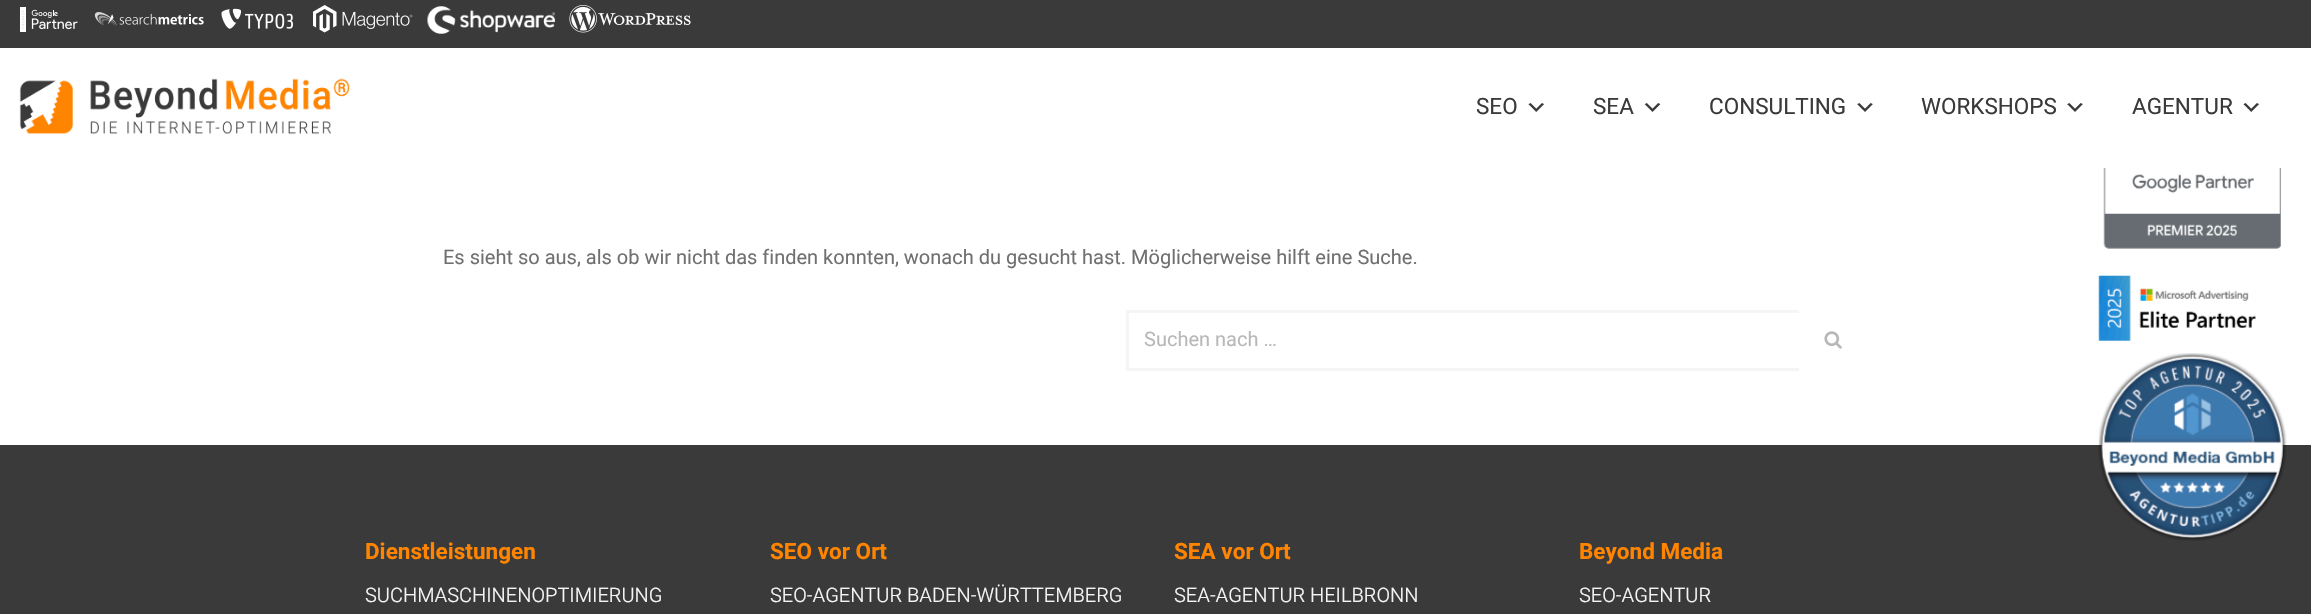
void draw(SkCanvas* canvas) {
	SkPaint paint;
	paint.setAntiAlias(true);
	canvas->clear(0xffffffff);
	paint.setColor(0xff3a3a3a);
	canvas->drawRect(SkRect::MakeXYWH(0, 0, 2311, 48), paint);
	canvas->drawImageRect(SkImages::DeferredFromEncodedData(SkData::MakeFromFileName("img1.png")), SkRect::MakeXYWH(20, 7, 58, 25), SkSamplingOptions());
	canvas->drawImageRect(SkImages::DeferredFromEncodedData(SkData::MakeFromFileName("img2.png")), SkRect::MakeXYWH(94, 12, 110, 14), SkSamplingOptions());
	canvas->drawImageRect(SkImages::DeferredFromEncodedData(SkData::MakeFromFileName("img3.png")), SkRect::MakeXYWH(221, 8, 72, 21), SkSamplingOptions());
	canvas->drawImageRect(SkImages::DeferredFromEncodedData(SkData::MakeFromFileName("img4.png")), SkRect::MakeXYWH(313, 5, 100, 28), SkSamplingOptions());
	canvas->drawImageRect(SkImages::DeferredFromEncodedData(SkData::MakeFromFileName("img5.png")), SkRect::MakeXYWH(427, 6, 128, 28), SkSamplingOptions());
	canvas->drawImageRect(SkImages::DeferredFromEncodedData(SkData::MakeFromFileName("img6.png")), SkRect::MakeXYWH(569, 5, 122, 28), SkSamplingOptions());
	canvas->drawImageRect(SkImages::DeferredFromEncodedData(SkData::MakeFromFileName("img7.png")), SkRect::MakeXYWH(19, 78, 331, 57), SkSamplingOptions());
	SkFont f1(fontMgr->matchFamilyStyle("Heebo", SkFontStyle::Normal()), 22.5);
	f1.setSubpixel(true);
	canvas->drawString("SEO", 1476, 114, f1, paint);
	canvas->drawImageRect(SkImages::DeferredFromEncodedData(SkData::MakeFromFileName("img8.png")), SkRect::MakeXYWH(1528, 103, 16, 9), SkSamplingOptions());
	canvas->drawString("SEA", 1593, 114, f1, paint);
	canvas->drawImageRect(SkImages::DeferredFromEncodedData(SkData::MakeFromFileName("img9.png")), SkRect::MakeXYWH(1644, 103, 17, 9), SkSamplingOptions());
	canvas->drawString("CONSULTING", 1709, 114, f1, paint);
	canvas->drawImageRect(SkImages::DeferredFromEncodedData(SkData::MakeFromFileName("img10.png")), SkRect::MakeXYWH(1857, 103, 16, 9), SkSamplingOptions());
	canvas->drawString("WORKSHOPS", 1921, 114, f1, paint);
	canvas->drawImageRect(SkImages::DeferredFromEncodedData(SkData::MakeFromFileName("img10.png")), SkRect::MakeXYWH(2067, 103, 16, 9), SkSamplingOptions());
	canvas->drawString("AGENTUR", 2132, 114, f1, paint);
	canvas->drawImageRect(SkImages::DeferredFromEncodedData(SkData::MakeFromFileName("img8.png")), SkRect::MakeXYWH(2243, 103, 16, 9), SkSamplingOptions());
	SkFont f2(fontMgr->matchFamilyStyle("Roboto", SkFontStyle::Normal()), 20);
	f2.setSubpixel(true);
	paint.setColor(0xff707070);
	canvas->drawString("Es sieht so aus, als ob wir nicht das finden konnten, wonach du gesucht hast. Möglicherweise hilft eine Suche.", 443, 264, f2, paint);
	paint.setColor(0xfff5f5f5);
	canvas->drawRect(SkRect::MakeXYWH(1126, 310, 673, 3), paint);
	canvas->drawRect(SkRect::MakeXYWH(1126, 368, 673, 3), paint);
	canvas->drawRect(SkRect::MakeXYWH(1126, 310, 3, 60), paint);
	SkFont f3(fontMgr->matchFamilyStyle("Heebo", SkFontStyle::Normal()), 20);
	f3.setSubpixel(true);
	paint.setColor(0xffb8b8b8);
	canvas->drawString("Suchen nach …", 1144, 346, f3, paint);
	canvas->drawImageRect(SkImages::DeferredFromEncodedData(SkData::MakeFromFileName("img11.png")), SkRect::MakeXYWH(1824, 331, 18, 18), SkSamplingOptions());
	paint.setColor(0xff3a3a3a);
	canvas->drawRect(SkRect::MakeXYWH(0, 445, 2311, 169), paint);
	SkFont f4(fontMgr->matchFamilyStyle("Heebo", SkFontStyle::Bold()), 22.5);
	f4.setSubpixel(true);
	paint.setColor(0xffff8400);
	canvas->drawString("Dienstleistungen", 365, 559, f4, paint);
	SkFont f5(fontMgr->matchFamilyStyle("Heebo", SkFontStyle(300, SkFontStyle::kNormal_Width, SkFontStyle::kUpright_Slant)), 20);
	f5.setSubpixel(true);
	paint.setColor(0xfff5f5f5);
	canvas->drawString("SUCHMASCHINENOPTIMIERUNG", 365, 602, f5, paint);
	paint.setColor(0xffff8400);
	canvas->drawString("SEO vor Ort", 770, 559, f4, paint);
	paint.setColor(0xfff5f5f5);
	canvas->drawString("SEO-AGENTUR BADEN-WÜRTTEMBERG", 770, 602, f5, paint);
	paint.setColor(0xffff8400);
	canvas->drawString("SEA vor Ort", 1174, 559, f4, paint);
	paint.setColor(0xfff5f5f5);
	canvas->drawString("SEA-AGENTUR HEILBRONN", 1174, 602, f5, paint);
	paint.setColor(0xffff8400);
	canvas->drawString("Beyond Media", 1579, 559, f4, paint);
	paint.setColor(0xfff5f5f5);
	canvas->drawString("SEO-AGENTUR", 1579, 602, f5, paint);
	canvas->drawImageRect(SkImages::DeferredFromEncodedData(SkData::MakeFromFileName("img12.png")), SkRect::MakeXYWH(2103, 168, 178, 81), SkSamplingOptions());
	canvas->drawImageRect(SkImages::DeferredFromEncodedData(SkData::MakeFromFileName("img13.png")), SkRect::MakeXYWH(2098, 275, 158, 66), SkSamplingOptions());
	canvas->drawImageRect(SkImages::DeferredFromEncodedData(SkData::MakeFromFileName("img14.png")), SkRect::MakeXYWH(2098, 353, 189, 188), SkSamplingOptions());
}
